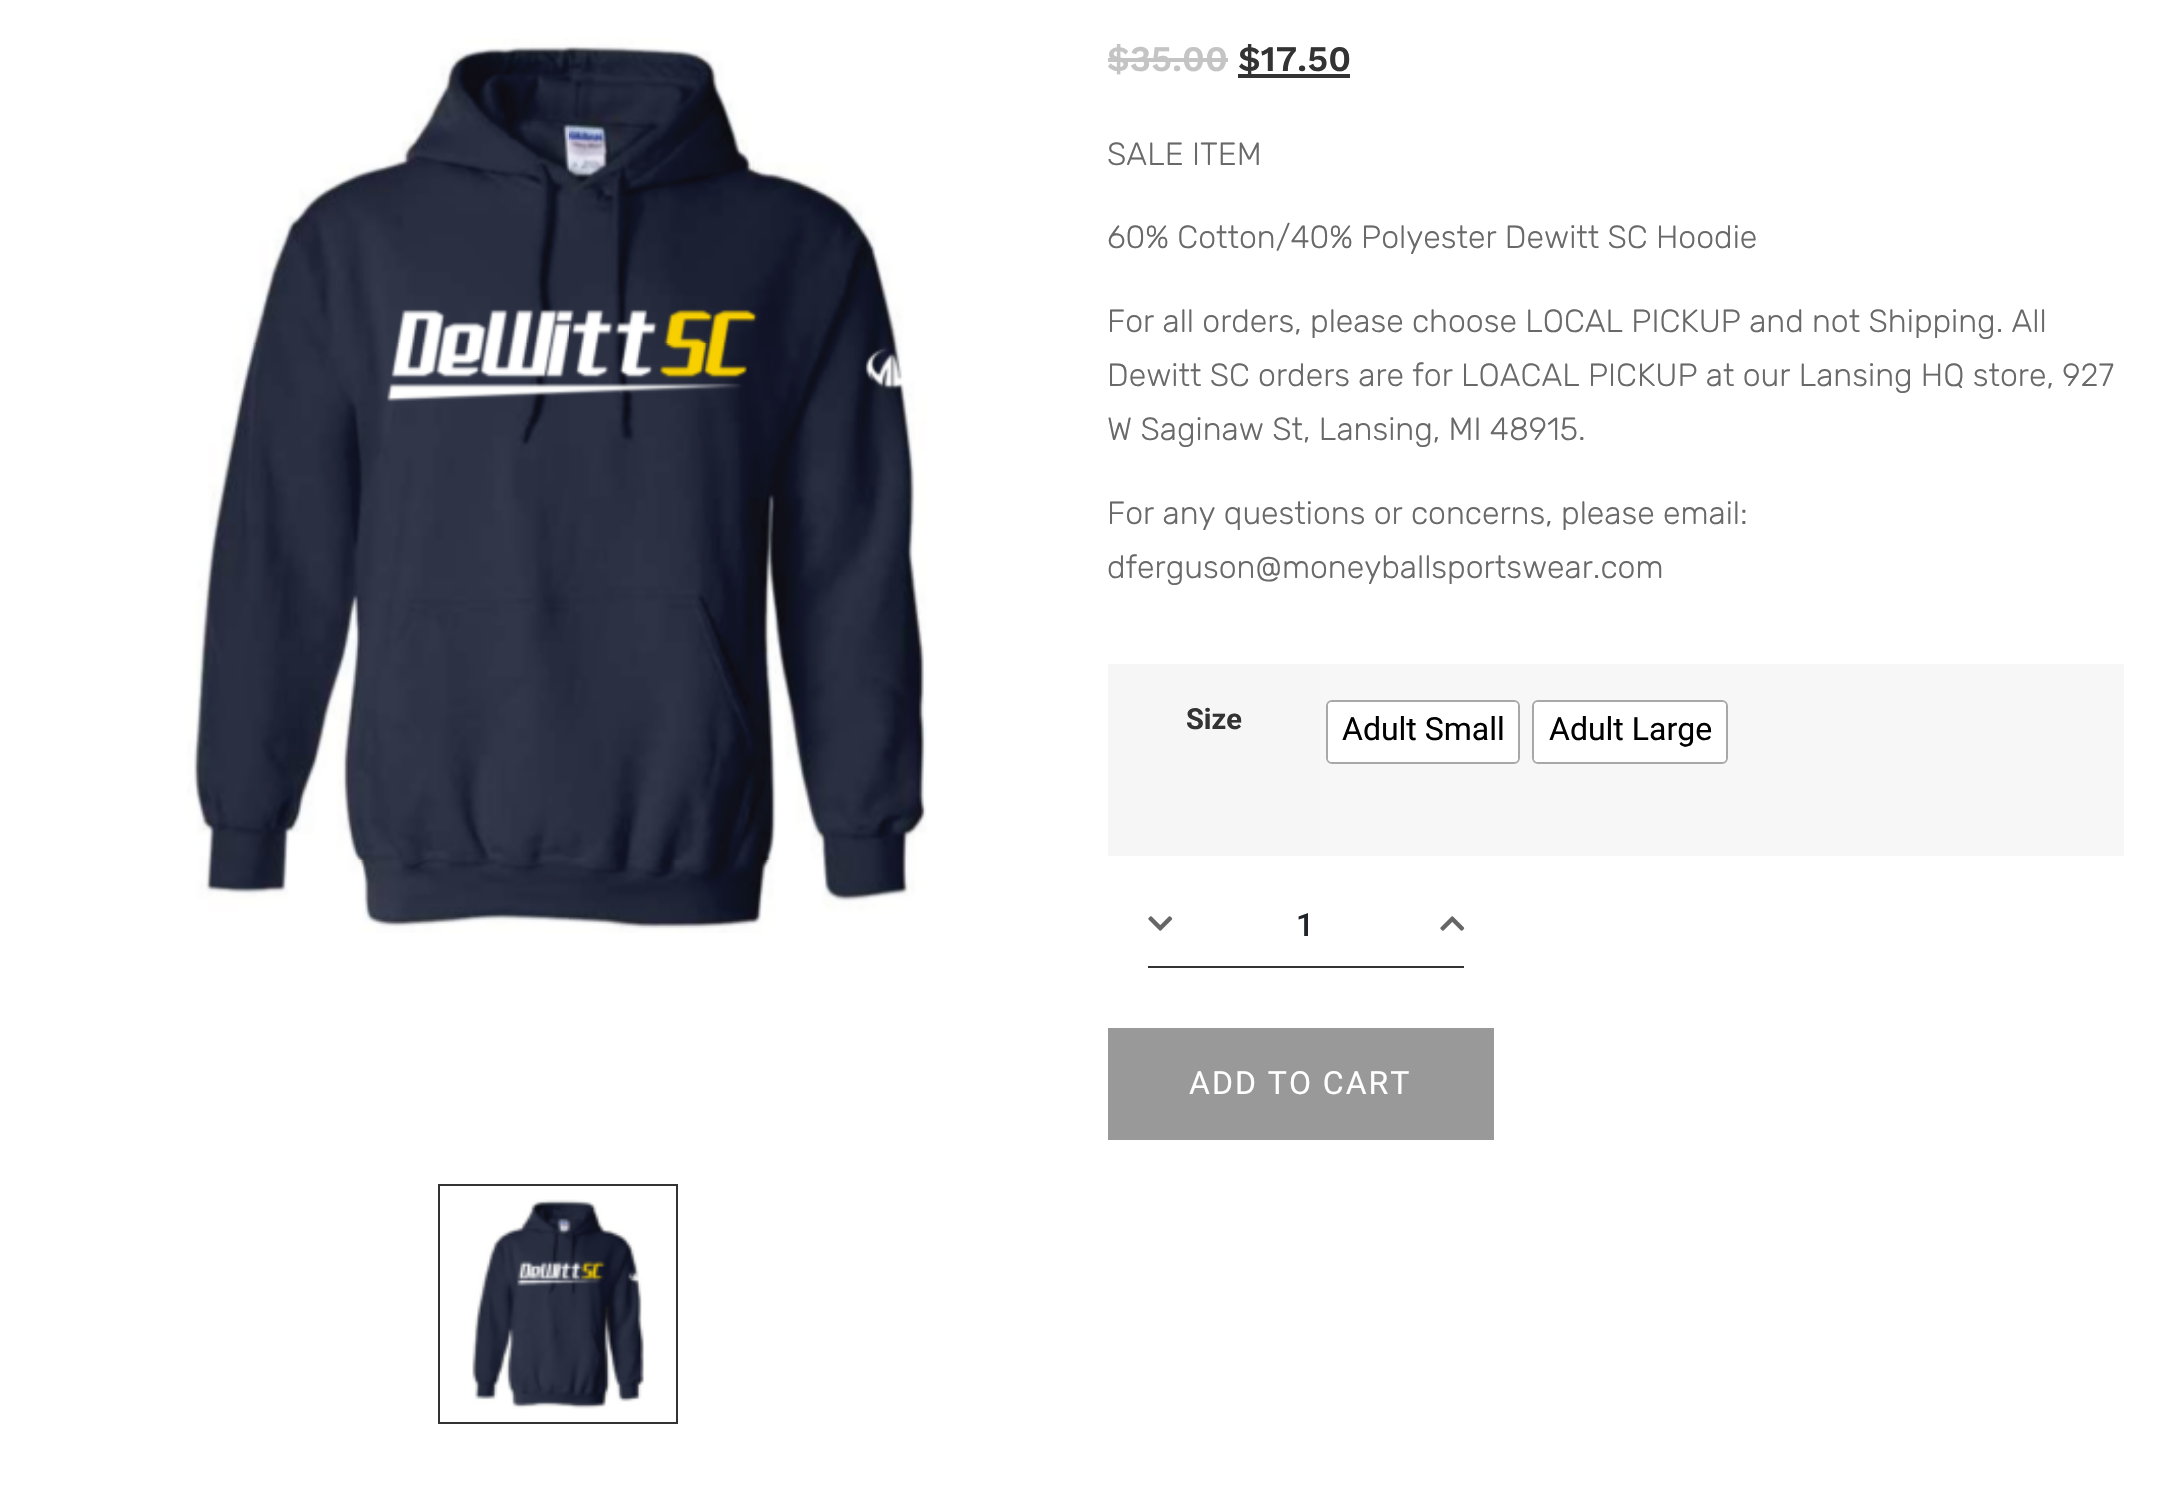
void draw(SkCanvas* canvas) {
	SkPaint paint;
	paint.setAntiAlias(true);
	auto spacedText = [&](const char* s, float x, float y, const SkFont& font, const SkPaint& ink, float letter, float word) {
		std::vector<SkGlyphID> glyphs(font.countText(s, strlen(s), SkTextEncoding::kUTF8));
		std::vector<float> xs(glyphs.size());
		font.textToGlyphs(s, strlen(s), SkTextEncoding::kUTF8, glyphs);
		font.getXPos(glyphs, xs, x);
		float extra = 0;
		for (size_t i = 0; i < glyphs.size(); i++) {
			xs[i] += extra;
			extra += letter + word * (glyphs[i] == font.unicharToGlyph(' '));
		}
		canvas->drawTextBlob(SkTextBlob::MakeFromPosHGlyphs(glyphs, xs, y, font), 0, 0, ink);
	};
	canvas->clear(0xffffffff);
	canvas->drawImageRect(SkImages::DeferredFromEncodedData(SkData::MakeFromFileName("img1.png")), SkRect::MakeXYWH(187, 38, 740, 895), SkSamplingOptions());
	paint.setStroke(true);
	paint.setStrokeWidth(2);
	paint.setColor(0xff333333);
	canvas->drawRect(SkRect::MakeXYWH(439, 1185, 238, 238), paint);
	canvas->drawImageRect(SkImages::DeferredFromEncodedData(SkData::MakeFromFileName("img2.png")), SkRect::MakeXYWH(472, 1199, 173, 210), SkSamplingOptions());
	SkFont f1(fontMgr->matchFamilyStyle("Work Sans", SkFontStyle(600, SkFontStyle::kNormal_Width, SkFontStyle::kUpright_Slant)), 36);
	f1.setSubpixel(true);
	paint.setStroke(false);
	paint.setColor(0xffc4c4c4);
	canvas->drawString("$35.00", 1107, 71, f1, paint);
	canvas->drawRect(SkRect::MakeXYWH(1108, 58, 120, 4), paint);
	paint.setColor(0xff333333);
	canvas->drawRect(SkRect::MakeXYWH(1238, 74, 112, 4), paint);
	canvas->drawString("$17.50", 1238, 71, f1, paint);
	SkFont f2(fontMgr->matchFamilyStyle("Rubik", SkFontStyle(300, SkFontStyle::kNormal_Width, SkFontStyle::kUpright_Slant)), 32);
	f2.setSubpixel(true);
	paint.setColor(0xff696969);
	canvas->drawString("SALE ITEM", 1107, 165, f2, paint);
	canvas->drawString("60% Cotton/40% Polyester Dewitt SC Hoodie", 1107, 248, f2, paint);
	canvas->drawString("For all orders, please choose LOCAL PICKUP and not Shipping. All", 1107, 332, f2, paint);
	canvas->drawString("Dewitt SC orders are for LOACAL PICKUP at our Lansing HQ store, 927", 1107, 386, f2, paint);
	canvas->drawString("W Saginaw St, Lansing, MI 48915.", 1107, 440, f2, paint);
	canvas->drawString("For any questions or concerns, please email:", 1107, 524, f2, paint);
	canvas->drawString("dferguson@moneyballsportswear.com", 1107, 578, f2, paint);
	paint.setColor(0xfff6f6f6);
	canvas->drawRect(SkRect::MakeXYWH(1108, 664, 212, 192), paint);
	SkFont f3(fontMgr->matchFamilyStyle("Roboto", SkFontStyle::Bold()), 29);
	f3.setSubpixel(true);
	paint.setColor(0xff333333);
	canvas->drawString("Size", 1186, 729, f3, paint);
	paint.setColor(0xfff7f7f7);
	canvas->drawRect(SkRect::MakeXYWH(1320, 664, 804, 192), paint);
	paint.setStroke(true);
	paint.setColor(0xffa8a8a8);
	canvas->drawRoundRect(SkRect::MakeXYWH(1327, 701, 192, 62), 5, 5, paint);
	paint.setStroke(false);
	paint.setColor(0xffffffff);
	canvas->drawRoundRect(SkRect::MakeXYWH(1328, 702, 190, 60), 4, 4, paint);
	SkFont f4(fontMgr->matchFamilyStyle("Roboto", SkFontStyle::Normal()), 32);
	f4.setSubpixel(true);
	paint.setColor(0xff000000);
	canvas->drawString("Adult Small", 1342, 740, f4, paint);
	paint.setStroke(true);
	paint.setColor(0xffa8a8a8);
	canvas->drawRoundRect(SkRect::MakeXYWH(1533, 701, 194, 62), 5, 5, paint);
	paint.setStroke(false);
	paint.setColor(0xffffffff);
	canvas->drawRoundRect(SkRect::MakeXYWH(1534, 702, 192, 60), 4, 4, paint);
	paint.setColor(0xff000000);
	canvas->drawString("Adult Large", 1549, 740, f4, paint);
	paint.setColor(0xff333333);
	canvas->drawRect(SkRect::MakeXYWH(1148, 966, 316, 2), paint);
	canvas->drawImageRect(SkImages::DeferredFromEncodedData(SkData::MakeFromFileName("img3.png")), SkRect::MakeXYWH(1148, 916, 25, 15), SkSamplingOptions());
	SkFont f5(fontMgr->matchFamilyStyle("Roboto", SkFontStyle(500, SkFontStyle::kNormal_Width, SkFontStyle::kUpright_Slant)), 32);
	f5.setSubpixel(true);
	paint.setColor(0xff212529);
	canvas->drawString("1", 1296, 936, f5, paint);
	canvas->drawImageRect(SkImages::DeferredFromEncodedData(SkData::MakeFromFileName("img4.png")), SkRect::MakeXYWH(1440, 916, 25, 15), SkSamplingOptions());
	paint.setColor(0xff999999);
	canvas->drawRect(SkRect::MakeXYWH(1108, 1028, 386, 112), paint);
	paint.setColor(0xffffffff);
	spacedText("ADD TO CART", 1189, 1094, f4, paint, 2, 0);
}
